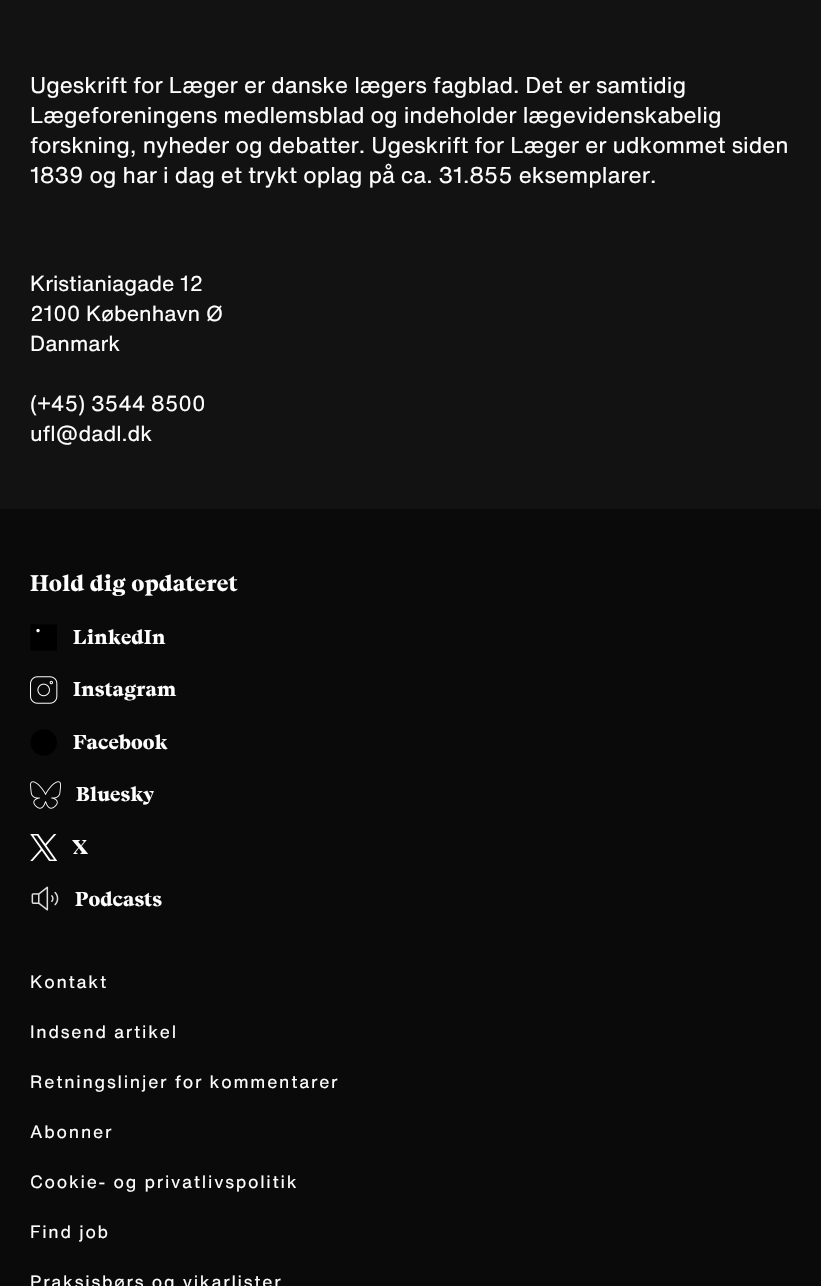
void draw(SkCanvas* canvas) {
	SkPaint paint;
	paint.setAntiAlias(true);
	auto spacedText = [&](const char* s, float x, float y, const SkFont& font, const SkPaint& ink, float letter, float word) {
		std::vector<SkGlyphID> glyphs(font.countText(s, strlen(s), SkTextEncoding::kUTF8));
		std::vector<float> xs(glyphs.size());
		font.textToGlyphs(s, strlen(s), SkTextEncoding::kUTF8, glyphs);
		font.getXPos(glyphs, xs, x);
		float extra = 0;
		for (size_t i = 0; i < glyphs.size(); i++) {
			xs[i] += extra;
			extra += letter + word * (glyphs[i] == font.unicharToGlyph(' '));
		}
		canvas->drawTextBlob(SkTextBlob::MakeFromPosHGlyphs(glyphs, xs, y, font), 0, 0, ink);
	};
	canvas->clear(0xff121212);
	SkFont f1(fontMgr->matchFamilyStyle("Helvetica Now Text", SkFontStyle::Normal()), 22.5);
	f1.setSubpixel(true);
	paint.setColor(0xffffffff);
	canvas->drawString("Ugeskrift for Læger er danske lægers fagblad. Det er samtidig", 30, 93, f1, paint);
	canvas->drawString("Lægeforeningens medlemsblad og indeholder lægevidenskabelig", 30, 123, f1, paint);
	canvas->drawString("forskning, nyheder og debatter. Ugeskrift for Læger er udkommet siden", 30, 153, f1, paint);
	canvas->drawString("1839 og har i dag et trykt oplag på ca. 31.855 eksemplarer.", 30, 183, f1, paint);
	SkFont f2(fontMgr->matchFamilyStyle("Helvetica Now Text", SkFontStyle::Normal()), 21.25);
	f2.setSubpixel(true);
	canvas->drawString("Kristianiagade 12", 30, 291, f2, paint);
	canvas->drawString("2100 København Ø", 30, 321, f2, paint);
	canvas->drawString("Danmark", 30, 351, f2, paint);
	canvas->drawString("(+45) 3544 8500", 30, 411, f2, paint);
	canvas->drawString("ufl@dadl.dk", 30, 441, f2, paint);
	paint.setColor(0xff0a0a0a);
	canvas->drawRect(SkRect::MakeXYWH(0, 509, 821, 777), paint);
	SkFont f3(fontMgr->matchFamilyStyle("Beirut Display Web", SkFontStyle::Bold()), 22.5);
	f3.setSubpixel(true);
	paint.setColor(0xffffffff);
	canvas->drawString("Hold dig opdateret", 30, 591, f3, paint);
	canvas->drawImageRect(SkImages::DeferredFromEncodedData(SkData::MakeFromFileName("img1.png")), SkRect::MakeXYWH(30, 624, 27, 27), SkSamplingOptions());
	SkFont f4(fontMgr->matchFamilyStyle("Beirut Display Web", SkFontStyle::Bold()), 20);
	f4.setSubpixel(true);
	canvas->drawString("LinkedIn", 73, 644, f4, paint);
	canvas->drawImageRect(SkImages::DeferredFromEncodedData(SkData::MakeFromFileName("img2.png")), SkRect::MakeXYWH(30, 676, 28, 28), SkSamplingOptions());
	canvas->drawString("Instagram", 73, 696, f4, paint);
	canvas->drawImageRect(SkImages::DeferredFromEncodedData(SkData::MakeFromFileName("img3.png")), SkRect::MakeXYWH(30, 729, 27, 27), SkSamplingOptions());
	canvas->drawString("Facebook", 73, 749, f4, paint);
	canvas->drawImageRect(SkImages::DeferredFromEncodedData(SkData::MakeFromFileName("img4.png")), SkRect::MakeXYWH(30, 781, 31, 28), SkSamplingOptions());
	canvas->drawString("Bluesky", 76, 801, f4, paint);
	canvas->drawImageRect(SkImages::DeferredFromEncodedData(SkData::MakeFromFileName("img5.png")), SkRect::MakeXYWH(30, 834, 27, 27), SkSamplingOptions());
	canvas->drawString("X", 72, 854, f4, paint);
	canvas->drawImageRect(SkImages::DeferredFromEncodedData(SkData::MakeFromFileName("img6.png")), SkRect::MakeXYWH(31, 886, 28, 25), SkSamplingOptions());
	canvas->drawString("Podcasts", 75, 906, f4, paint);
	SkFont f5(fontMgr->matchFamilyStyle("Helvetica Now Text", SkFontStyle::Normal()), 17.5);
	f5.setSubpixel(true);
	spacedText("Kontakt", 30, 988, f5, paint, 1.75, 0);
	spacedText("Indsend artikel", 30, 1038, f5, paint, 1.75, 0);
	spacedText("Retningslinjer for kommentarer", 30, 1088, f5, paint, 1.75, 0);
	spacedText("Abonner", 30, 1138, f5, paint, 1.75, 0);
	spacedText("Cookie- og privatlivspolitik", 30, 1188, f5, paint, 1.75, 0);
	spacedText("Find job", 30, 1238, f5, paint, 1.75, 0);
	spacedText("Praksisbørs og vikarlister", 30, 1288, f5, paint, 1.75, 0);
}
